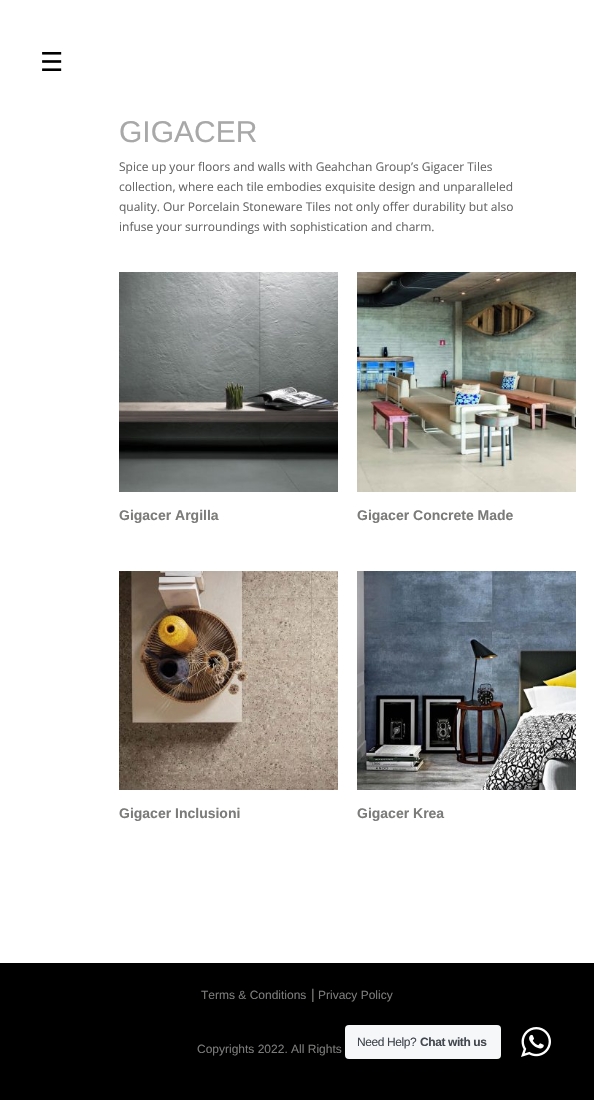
void draw(SkCanvas* canvas) {
	SkPaint paint;
	paint.setAntiAlias(true);
	auto spacedText = [&](const char* s, float x, float y, const SkFont& font, const SkPaint& ink, float letter, float word) {
		std::vector<SkGlyphID> glyphs(font.countText(s, strlen(s), SkTextEncoding::kUTF8));
		std::vector<float> xs(glyphs.size());
		font.textToGlyphs(s, strlen(s), SkTextEncoding::kUTF8, glyphs);
		font.getXPos(glyphs, xs, x);
		float extra = 0;
		for (size_t i = 0; i < glyphs.size(); i++) {
			xs[i] += extra;
			extra += letter + word * (glyphs[i] == font.unicharToGlyph(' '));
		}
		canvas->drawTextBlob(SkTextBlob::MakeFromPosHGlyphs(glyphs, xs, y, font), 0, 0, ink);
	};
	canvas->clear(0xffffffff);
	SkFont f1(fontMgr->matchFamilyStyle("DejaVu Sans", SkFontStyle::Normal()), 26);
	f1.setSubpixel(true);
	paint.setColor(0xff000000);
	canvas->drawString("☰", 40, 71, f1, paint);
	SkFont f2(fontMgr->matchFamilyStyle("Liberation Sans", SkFontStyle::Normal()), 30);
	f2.setSubpixel(true);
	paint.setColor(0xffa8a8a8);
	canvas->drawString("GIGACER", 119, 142, f2, paint);
	SkFont f3(fontMgr->matchFamilyStyle("Open Sans", SkFontStyle::Normal()), 12);
	f3.setSubpixel(true);
	paint.setColor(0xff666666);
	canvas->drawString("Spice up your floors and walls with Geahchan Group’s Gigacer Tiles", 119, 171, f3, paint);
	canvas->drawString("collection, where each tile embodies exquisite design and unparalleled", 119, 191, f3, paint);
	canvas->drawString("quality. Our Porcelain Stoneware Tiles not only offer durability but also", 119, 211, f3, paint);
	canvas->drawString("infuse your surroundings with sophistication and charm.", 119, 231, f3, paint);
	canvas->drawImageRect(SkImages::DeferredFromEncodedData(SkData::MakeFromFileName("img1.png")), SkRect::MakeXYWH(119, 272, 219, 220), SkSamplingOptions());
	SkFont f4(fontMgr->matchFamilyStyle("Liberation Sans", SkFontStyle::Bold()), 14);
	f4.setSubpixel(true);
	paint.setColor(0xff7b7b7a);
	canvas->drawString("Gigacer Argilla", 119, 520, f4, paint);
	canvas->drawImageRect(SkImages::DeferredFromEncodedData(SkData::MakeFromFileName("img2.png")), SkRect::MakeXYWH(357, 272, 219, 220), SkSamplingOptions());
	canvas->drawString("Gigacer Concrete Made", 357, 520, f4, paint);
	canvas->drawImageRect(SkImages::DeferredFromEncodedData(SkData::MakeFromFileName("img3.png")), SkRect::MakeXYWH(119, 571, 219, 219), SkSamplingOptions());
	canvas->drawString("Gigacer Inclusioni", 119, 818, f4, paint);
	canvas->drawImageRect(SkImages::DeferredFromEncodedData(SkData::MakeFromFileName("img4.png")), SkRect::MakeXYWH(357, 571, 219, 219), SkSamplingOptions());
	canvas->drawString("Gigacer Krea", 357, 818, f4, paint);
	paint.setColor(0xff000000);
	canvas->drawRect(SkRect::MakeXYWH(0, 963, 594, 137), paint);
	SkFont f5(fontMgr->matchFamilyStyle("Liberation Sans", SkFontStyle::Normal()), 12);
	f5.setSubpixel(true);
	paint.setColor(0xff7b7b7a);
	canvas->drawString("Terms & Conditions", 201, 999, f5, paint);
	SkFont f6(fontMgr->matchFamilyStyle("Liberation Sans", SkFontStyle::Normal()), 14);
	f6.setSubpixel(true);
	canvas->drawString("|", 311, 999, f6, paint);
	canvas->drawString("Privacy Policy", 318, 999, f5, paint);
	canvas->drawString("Copyrights 2022. All Rights", 197, 1053, f5, paint);
	paint.setColor(0xfff5f7f9);
	canvas->drawRoundRect(SkRect::MakeXYWH(345, 1025, 156, 34), 4, 4, paint);
	paint.setColor(0xff43474e);
	spacedText("Need Help?", 357, 1046, f5, paint, -0.4, 0);
	SkFont f7(fontMgr->matchFamilyStyle("Liberation Sans", SkFontStyle::Bold()), 12);
	f7.setSubpixel(true);
	spacedText("Chat with us", 420, 1046, f7, paint, -0.4, 0);
	canvas->drawImageRect(SkImages::DeferredFromEncodedData(SkData::MakeFromFileName("img5.png")), SkRect::MakeXYWH(521, 1027, 30, 30), SkSamplingOptions());
}
